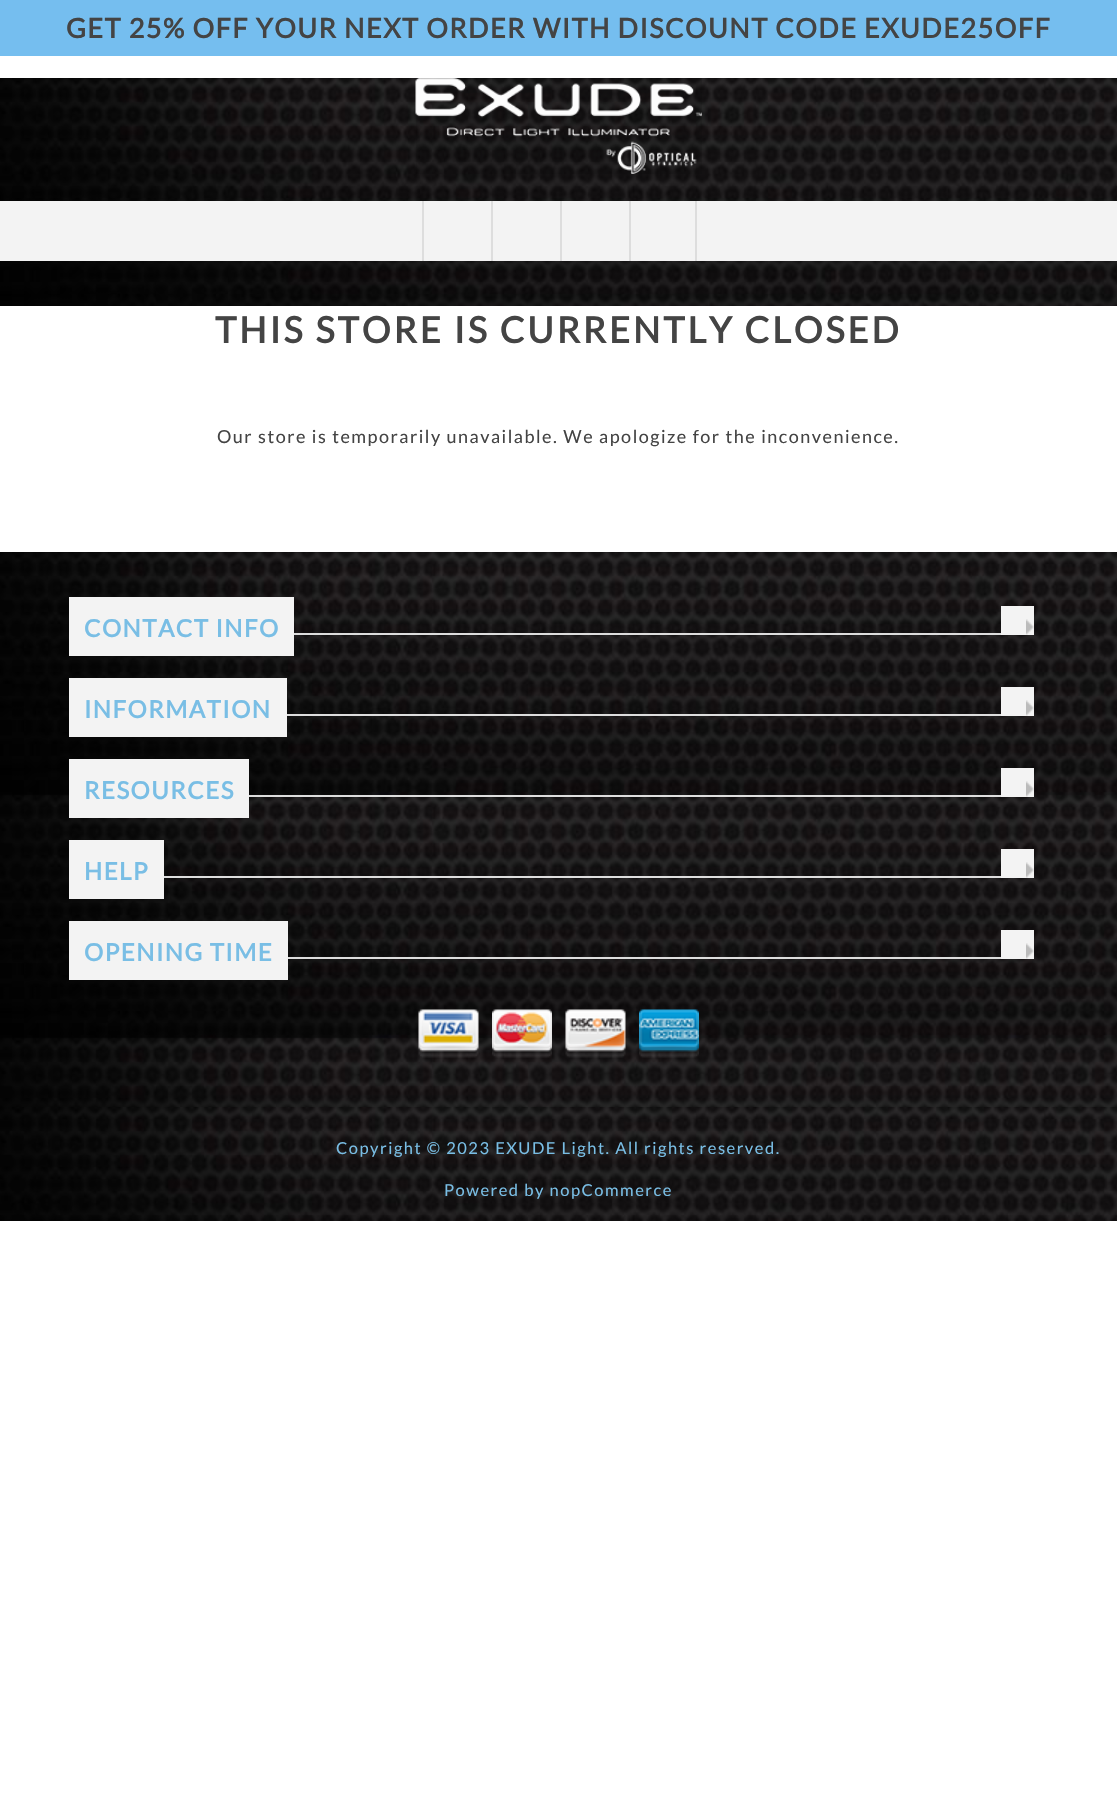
void draw(SkCanvas* canvas) {
	SkPaint paint;
	paint.setAntiAlias(true);
	auto spacedText = [&](const char* s, float x, float y, const SkFont& font, const SkPaint& ink, float letter, float word) {
		std::vector<SkGlyphID> glyphs(font.countText(s, strlen(s), SkTextEncoding::kUTF8));
		std::vector<float> xs(glyphs.size());
		font.textToGlyphs(s, strlen(s), SkTextEncoding::kUTF8, glyphs);
		font.getXPos(glyphs, xs, x);
		float extra = 0;
		for (size_t i = 0; i < glyphs.size(); i++) {
			xs[i] += extra;
			extra += letter + word * (glyphs[i] == font.unicharToGlyph(' '));
		}
		canvas->drawTextBlob(SkTextBlob::MakeFromPosHGlyphs(glyphs, xs, y, font), 0, 0, ink);
	};
	canvas->clear(0xffffffff);
	paint.setColor(0xff75beef);
	canvas->drawRect(SkRect::MakeXYWH(0, 0, 1117, 56), paint);
	SkFont f1(fontMgr->matchFamilyStyle("Lato", SkFontStyle::Bold()), 27);
	f1.setSubpixel(true);
	paint.setColor(0xff444444);
	spacedText("GET 25% OFF YOUR NEXT ORDER WITH DISCOUNT CODE EXUDE25OFF", 66, 38, f1, paint, 1.5, 0);
	canvas->drawImageRect(SkImages::DeferredFromEncodedData(SkData::MakeFromFileName("img1.png")), SkRect::MakeXYWH(0, 78, 1117, 228), SkSamplingOptions());
	paint.setColor(0x1a000000);
	canvas->drawRect(SkRect::MakeXYWH(416, 78, 286, 96), paint);
	canvas->drawImageRect(SkImages::DeferredFromEncodedData(SkData::MakeFromFileName("img2.png")), SkRect::MakeXYWH(415, 78, 287, 96), SkSamplingOptions());
	paint.setColor(0xfff3f3f3);
	canvas->drawRect(SkRect::MakeXYWH(0, 201, 1117, 60), paint);
	paint.setColor(0xffdddddd);
	canvas->drawRect(SkRect::MakeXYWH(422, 201, 2, 60), paint);
	canvas->drawRect(SkRect::MakeXYWH(491, 201, 2, 60), paint);
	canvas->drawRect(SkRect::MakeXYWH(560, 201, 2, 60), paint);
	canvas->drawRect(SkRect::MakeXYWH(695, 201, 2, 60), paint);
	canvas->drawRect(SkRect::MakeXYWH(629, 201, 2, 60), paint);
	SkFont f2(fontMgr->matchFamilyStyle("Lato", SkFontStyle::Bold()), 36);
	f2.setSubpixel(true);
	paint.setColor(0xff444444);
	spacedText("THIS STORE IS CURRENTLY CLOSED", 215, 343, f2, paint, 3, 0);
	SkFont f3(fontMgr->matchFamilyStyle("Lato", SkFontStyle::Normal()), 18);
	f3.setSubpixel(true);
	spacedText("Our store is temporarily unavailable. We apologize for the inconvenience.", 217, 443, f3, paint, 1.5, 0);
	canvas->drawImageRect(SkImages::DeferredFromEncodedData(SkData::MakeFromFileName("img3.png")), SkRect::MakeXYWH(0, 552, 1117, 555), SkSamplingOptions());
	paint.setStroke(true);
	paint.setStrokeWidth(15);
	paint.setColor(0xfff3f3f3);
	canvas->drawRect(SkRect::MakeXYWH(76.5, 604.5, 210, 44), paint);
	paint.setStroke(false);
	canvas->drawRect(SkRect::MakeXYWH(84, 612, 195, 29), paint);
	SkFont f4(fontMgr->matchFamilyStyle("Lato", SkFontStyle::Bold()), 24);
	f4.setSubpixel(true);
	paint.setColor(0xff79bee5);
	spacedText("CONTACT INFO", 84, 637, f4, paint, 1.5, 0);
	paint.setColor(0xfff3f3f3);
	canvas->drawRect(SkRect::MakeXYWH(1001, 606, 33, 29), paint);
	canvas->drawImageRect(SkImages::DeferredFromEncodedData(SkData::MakeFromFileName("img4.png")), SkRect::MakeXYWH(1026, 619, 8, 16), SkSamplingOptions());
	paint.setColor(0xffdddddd);
	canvas->drawRect(SkRect::MakeXYWH(294, 633, 707, 2), paint);
	paint.setStroke(true);
	paint.setColor(0xfff3f3f3);
	canvas->drawRect(SkRect::MakeXYWH(76.5, 685.5, 203, 44), paint);
	paint.setStroke(false);
	canvas->drawRect(SkRect::MakeXYWH(84, 693, 188, 29), paint);
	paint.setColor(0xff79bee5);
	spacedText("INFORMATION", 84, 718, f4, paint, 1.5, 0);
	paint.setColor(0xfff3f3f3);
	canvas->drawRect(SkRect::MakeXYWH(1001, 687, 33, 29), paint);
	canvas->drawImageRect(SkImages::DeferredFromEncodedData(SkData::MakeFromFileName("img4.png")), SkRect::MakeXYWH(1026, 700, 8, 16), SkSamplingOptions());
	paint.setColor(0xffdddddd);
	canvas->drawRect(SkRect::MakeXYWH(287, 714, 714, 2), paint);
	paint.setStroke(true);
	paint.setColor(0xfff3f3f3);
	canvas->drawRect(SkRect::MakeXYWH(76.5, 766.5, 165, 44), paint);
	paint.setStroke(false);
	canvas->drawRect(SkRect::MakeXYWH(84, 774, 150, 29), paint);
	paint.setColor(0xff79bee5);
	spacedText("RESOURCES", 84, 799, f4, paint, 1.5, 0);
	paint.setColor(0xfff3f3f3);
	canvas->drawRect(SkRect::MakeXYWH(1001, 768, 33, 29), paint);
	canvas->drawImageRect(SkImages::DeferredFromEncodedData(SkData::MakeFromFileName("img4.png")), SkRect::MakeXYWH(1026, 781, 8, 16), SkSamplingOptions());
	paint.setColor(0xffdddddd);
	canvas->drawRect(SkRect::MakeXYWH(249, 795, 752, 2), paint);
	paint.setStroke(true);
	paint.setColor(0xfff3f3f3);
	canvas->drawRect(SkRect::MakeXYWH(76.5, 847.5, 80, 44), paint);
	paint.setStroke(false);
	canvas->drawRect(SkRect::MakeXYWH(84, 855, 65, 29), paint);
	paint.setColor(0xff79bee5);
	spacedText("HELP", 84, 880, f4, paint, 1.5, 0);
	paint.setColor(0xfff3f3f3);
	canvas->drawRect(SkRect::MakeXYWH(1001, 849, 33, 29), paint);
	canvas->drawImageRect(SkImages::DeferredFromEncodedData(SkData::MakeFromFileName("img4.png")), SkRect::MakeXYWH(1026, 862, 8, 16), SkSamplingOptions());
	paint.setColor(0xffdddddd);
	canvas->drawRect(SkRect::MakeXYWH(164, 876, 837, 2), paint);
	paint.setStroke(true);
	paint.setColor(0xfff3f3f3);
	canvas->drawRect(SkRect::MakeXYWH(76.5, 928.5, 204, 44), paint);
	paint.setStroke(false);
	canvas->drawRect(SkRect::MakeXYWH(84, 936, 189, 29), paint);
	paint.setColor(0xff79bee5);
	spacedText("OPENING TIME", 84, 961, f4, paint, 1.5, 0);
	paint.setColor(0xfff3f3f3);
	canvas->drawRect(SkRect::MakeXYWH(1001, 930, 33, 29), paint);
	canvas->drawImageRect(SkImages::DeferredFromEncodedData(SkData::MakeFromFileName("img4.png")), SkRect::MakeXYWH(1026, 943, 8, 16), SkSamplingOptions());
	paint.setColor(0xffdddddd);
	canvas->drawRect(SkRect::MakeXYWH(288, 957, 713, 2), paint);
	canvas->drawImageRect(SkImages::DeferredFromEncodedData(SkData::MakeFromFileName("img5.png")), SkRect::MakeXYWH(418, 1009, 61, 49), SkSamplingOptions());
	canvas->drawImageRect(SkImages::DeferredFromEncodedData(SkData::MakeFromFileName("img6.png")), SkRect::MakeXYWH(492, 1009, 60, 49), SkSamplingOptions());
	canvas->drawImageRect(SkImages::DeferredFromEncodedData(SkData::MakeFromFileName("img7.png")), SkRect::MakeXYWH(565, 1009, 61, 49), SkSamplingOptions());
	canvas->drawImageRect(SkImages::DeferredFromEncodedData(SkData::MakeFromFileName("img8.png")), SkRect::MakeXYWH(639, 1009, 60, 49), SkSamplingOptions());
	canvas->drawImageRect(SkImages::DeferredFromEncodedData(SkData::MakeFromFileName("img9.png")), SkRect::MakeXYWH(0, 1107, 1117, 114), SkSamplingOptions());
	SkFont f5(fontMgr->matchFamilyStyle("Lato", SkFontStyle::Normal()), 16.5);
	f5.setSubpixel(true);
	paint.setColor(0xff79bee5);
	spacedText("Copyright © 2023 EXUDE Light. All rights reserved.", 336, 1154, f5, paint, 1.5, 0);
	spacedText("Powered by nopCommerce", 444, 1196, f5, paint, 1.5, 0);
}
